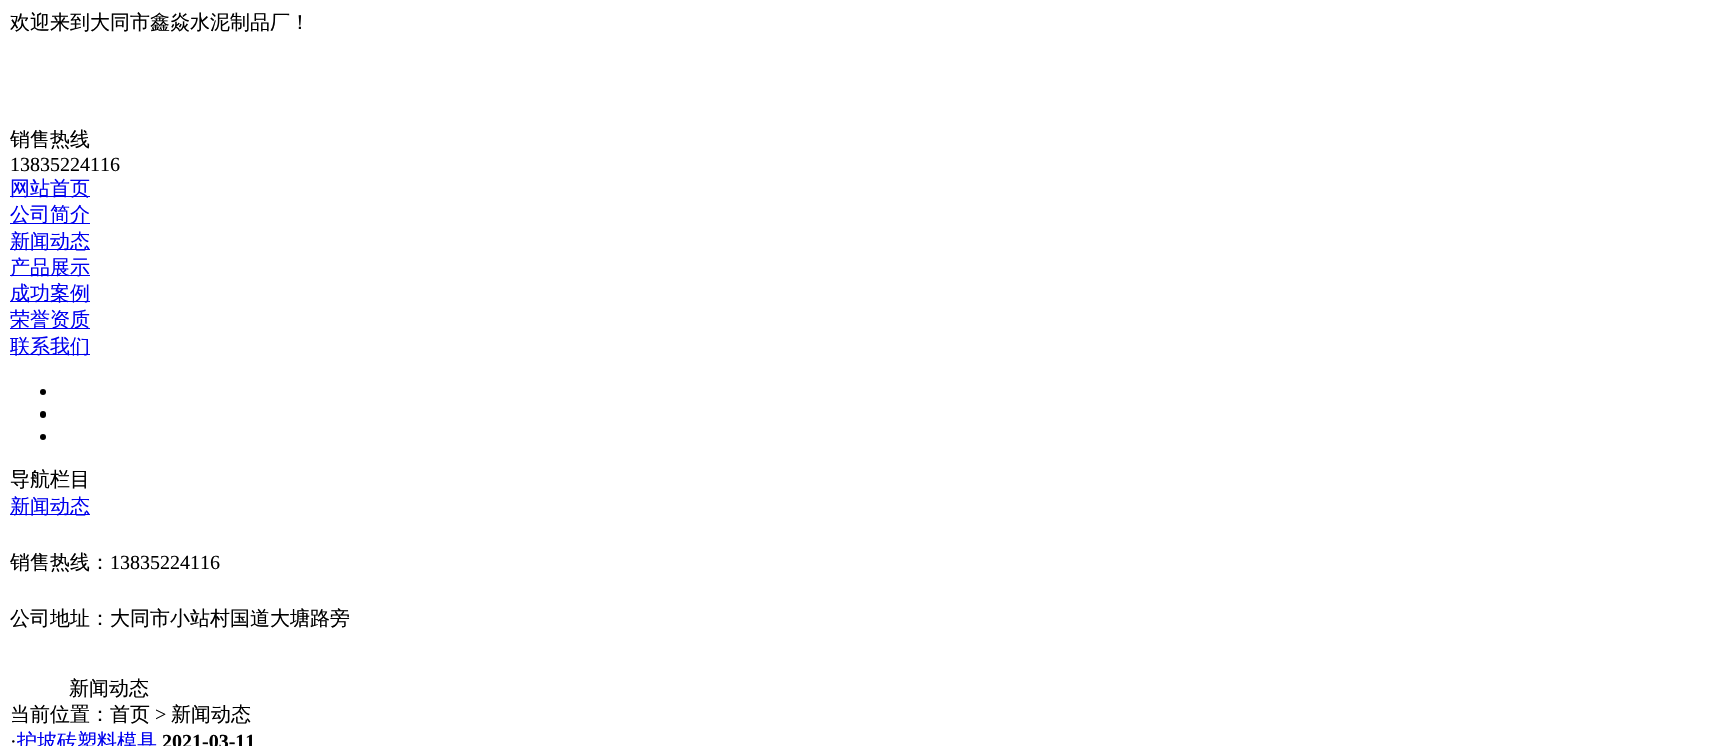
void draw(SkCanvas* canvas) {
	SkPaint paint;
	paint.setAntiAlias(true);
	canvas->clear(0xffffffff);
	SkFont f1(fontMgr->matchFamilyStyle("WenQuanYi Zen Hei", SkFontStyle(500, SkFontStyle::kNormal_Width, SkFontStyle::kUpright_Slant)), 20);
	f1.setSubpixel(true);
	paint.setColor(0xff000000);
	canvas->drawString("欢迎来到大同市鑫焱水泥制品厂！", 10, 29, f1, paint);
	canvas->drawString("销售热线", 10, 146, f1, paint);
	SkFont f2(fontMgr->matchFamilyStyle("Liberation Serif", SkFontStyle::Normal()), 20);
	f2.setSubpixel(true);
	canvas->drawString("13835224116", 10, 171, f2, paint);
	paint.setColor(0xff0000ee);
	canvas->drawRect(SkRect::MakeXYWH(10, 196, 80, 1), paint);
	canvas->drawString("网站首页", 10, 195, f1, paint);
	canvas->drawRect(SkRect::MakeXYWH(10, 223, 80, 1), paint);
	canvas->drawString("公司简介", 10, 221, f1, paint);
	canvas->drawRect(SkRect::MakeXYWH(10, 249, 80, 1), paint);
	canvas->drawString("新闻动态", 10, 248, f1, paint);
	canvas->drawRect(SkRect::MakeXYWH(10, 275, 80, 1), paint);
	canvas->drawString("产品展示", 10, 274, f1, paint);
	canvas->drawRect(SkRect::MakeXYWH(10, 301, 80, 1), paint);
	canvas->drawString("成功案例", 10, 300, f1, paint);
	canvas->drawRect(SkRect::MakeXYWH(10, 328, 80, 1), paint);
	canvas->drawString("荣誉资质", 10, 326, f1, paint);
	canvas->drawRect(SkRect::MakeXYWH(10, 354, 80, 1), paint);
	canvas->drawString("联系我们", 10, 353, f1, paint);
	paint.setColor(0xff000000);
	canvas->drawCircle(43, 392, 3, paint);
	canvas->drawRoundRect(SkRect::MakeXYWH(40, 411, 6, 7), 3, 3, paint);
	canvas->drawCircle(43, 437, 3, paint);
	canvas->drawString("导航栏目", 10, 486, f1, paint);
	paint.setColor(0xff0000ee);
	canvas->drawRect(SkRect::MakeXYWH(10, 514, 80, 1), paint);
	canvas->drawString("新闻动态", 10, 513, f1, paint);
	paint.setColor(0xff000000);
	canvas->drawString("销售热线：", 10, 569, f1, paint);
	canvas->drawString("13835224116", 110, 569, f2, paint);
	canvas->drawString("公司地址：大同市小站村国道大塘路旁", 10, 625, f1, paint);
	canvas->drawString("新闻动态", 69, 695, f1, paint);
	canvas->drawString("当前位置：首页", 10, 721, f1, paint);
	canvas->drawString(">", 155, 721, f2, paint);
	canvas->drawString("新闻动态", 171, 721, f1, paint);
	canvas->drawString("·", 10, 748, f2, paint);
	paint.setColor(0xff0000ee);
	canvas->drawString("护坡砖塑料模具", 17, 748, f1, paint);
	SkFont f3(fontMgr->matchFamilyStyle("Liberation Serif", SkFontStyle::Bold()), 20);
	f3.setSubpixel(true);
	paint.setColor(0xff000000);
	canvas->drawString("2021-03-11", 162, 748, f3, paint);
}
